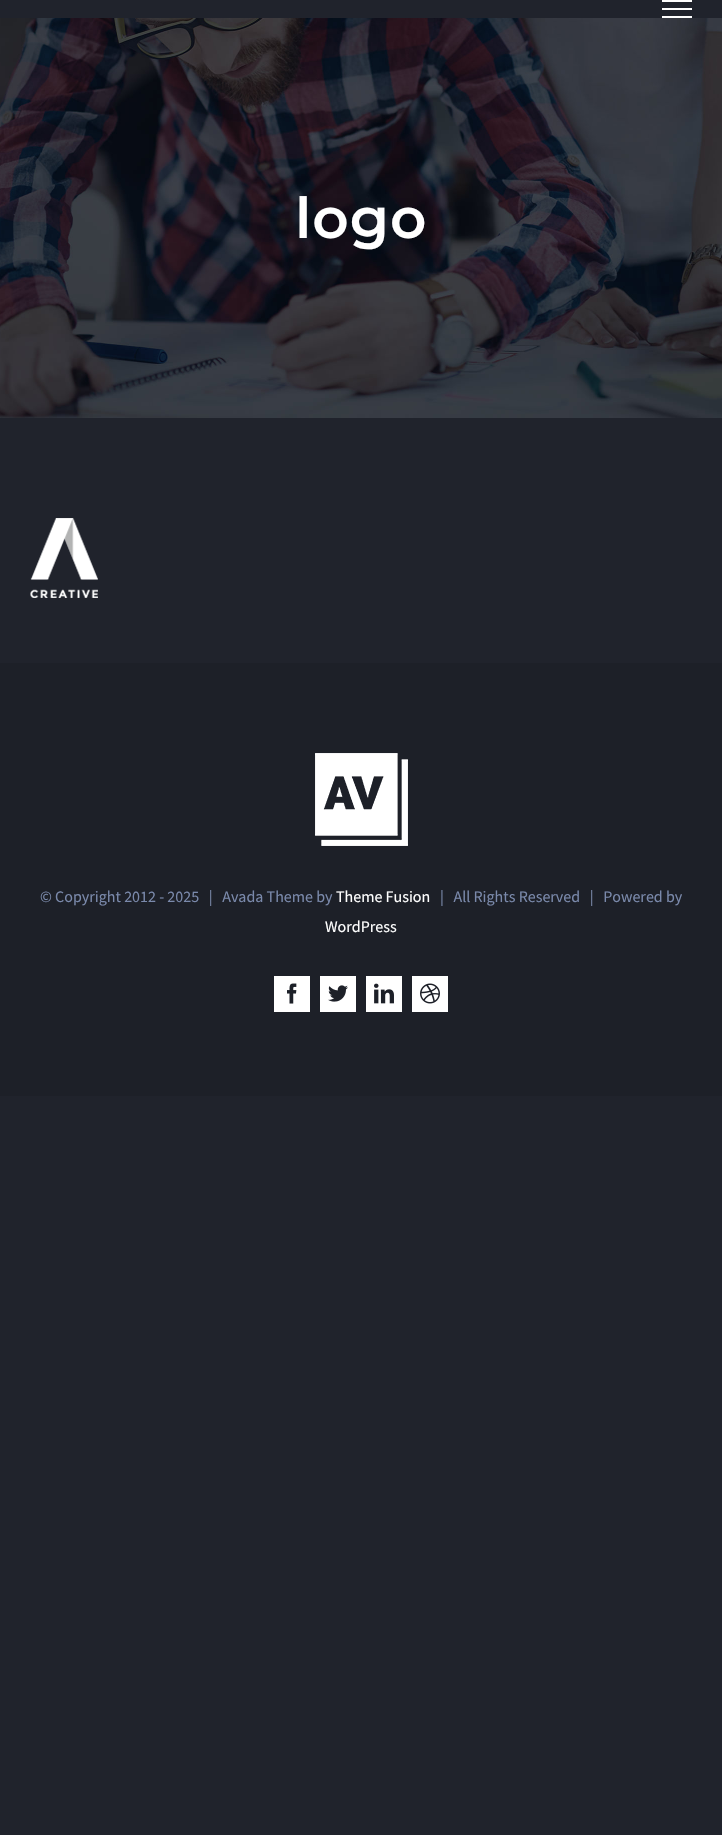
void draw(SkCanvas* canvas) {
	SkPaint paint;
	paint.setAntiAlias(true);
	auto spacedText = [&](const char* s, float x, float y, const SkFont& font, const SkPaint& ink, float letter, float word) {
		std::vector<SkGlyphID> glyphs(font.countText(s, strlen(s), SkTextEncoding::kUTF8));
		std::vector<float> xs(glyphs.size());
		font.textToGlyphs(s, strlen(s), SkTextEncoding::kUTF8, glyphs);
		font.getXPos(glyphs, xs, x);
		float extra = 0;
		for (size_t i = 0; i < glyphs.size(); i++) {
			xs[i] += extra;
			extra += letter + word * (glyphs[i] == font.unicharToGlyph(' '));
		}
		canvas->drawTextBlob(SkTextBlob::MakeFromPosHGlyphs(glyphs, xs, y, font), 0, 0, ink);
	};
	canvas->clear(0xff20232c);
	paint.setColor(0xffffffff);
	canvas->drawRect(SkRect::MakeXYWH(662, 0, 30, 2), paint);
	canvas->drawRect(SkRect::MakeXYWH(662, 8, 30, 2), paint);
	canvas->drawRect(SkRect::MakeXYWH(662, 16, 30, 2), paint);
	canvas->drawImageRect(SkImages::DeferredFromEncodedData(SkData::MakeFromFileName("img1.png")), SkRect::MakeXYWH(0, 18, 722, 400), SkSamplingOptions());
	SkFont f1(fontMgr->matchFamilyStyle("Montserrat", SkFontStyle(100, SkFontStyle::kNormal_Width, SkFontStyle::kUpright_Slant)), 56.5);
	f1.setSubpixel(true);
	spacedText("logo", 295, 238, f1, paint, 1, 0);
	canvas->drawImageRect(SkImages::DeferredFromEncodedData(SkData::MakeFromFileName("img2.png")), SkRect::MakeXYWH(30, 518, 68, 80), SkSamplingOptions());
	paint.setColor(0xff1d2028);
	canvas->drawRect(SkRect::MakeXYWH(0, 663, 722, 433), paint);
	canvas->drawImageRect(SkImages::DeferredFromEncodedData(SkData::MakeFromFileName("img3.png")), SkRect::MakeXYWH(315, 753, 93, 93), SkSamplingOptions());
	SkFont f2(fontMgr->matchFamilyStyle("Source Sans Pro", SkFontStyle::Normal()), 16);
	f2.setSubpixel(true);
	paint.setColor(0xff7a89ab);
	canvas->drawString("© Copyright 2012 - 2025   |   Avada Theme by", 40, 902, f2, paint);
	paint.setColor(0xffffffff);
	canvas->drawString("Theme Fusion", 336, 902, f2, paint);
	paint.setColor(0xff7a89ab);
	canvas->drawString("|   All Rights Reserved   |   Powered by", 440, 902, f2, paint);
	paint.setColor(0xffffffff);
	canvas->drawString("WordPress", 325, 932, f2, paint);
	canvas->drawRect(SkRect::MakeXYWH(274, 976, 36, 36), paint);
	canvas->drawImageRect(SkImages::DeferredFromEncodedData(SkData::MakeFromFileName("img4.png")), SkRect::MakeXYWH(287, 983, 10, 21), SkSamplingOptions());
	canvas->drawRect(SkRect::MakeXYWH(320, 976, 36, 36), paint);
	canvas->drawImageRect(SkImages::DeferredFromEncodedData(SkData::MakeFromFileName("img5.png")), SkRect::MakeXYWH(328, 985, 20, 17), SkSamplingOptions());
	canvas->drawRect(SkRect::MakeXYWH(366, 976, 36, 36), paint);
	canvas->drawImageRect(SkImages::DeferredFromEncodedData(SkData::MakeFromFileName("img6.png")), SkRect::MakeXYWH(374, 983, 20, 21), SkSamplingOptions());
	canvas->drawRect(SkRect::MakeXYWH(412, 976, 36, 36), paint);
	canvas->drawImageRect(SkImages::DeferredFromEncodedData(SkData::MakeFromFileName("img7.png")), SkRect::MakeXYWH(420, 983, 20, 21), SkSamplingOptions());
}
